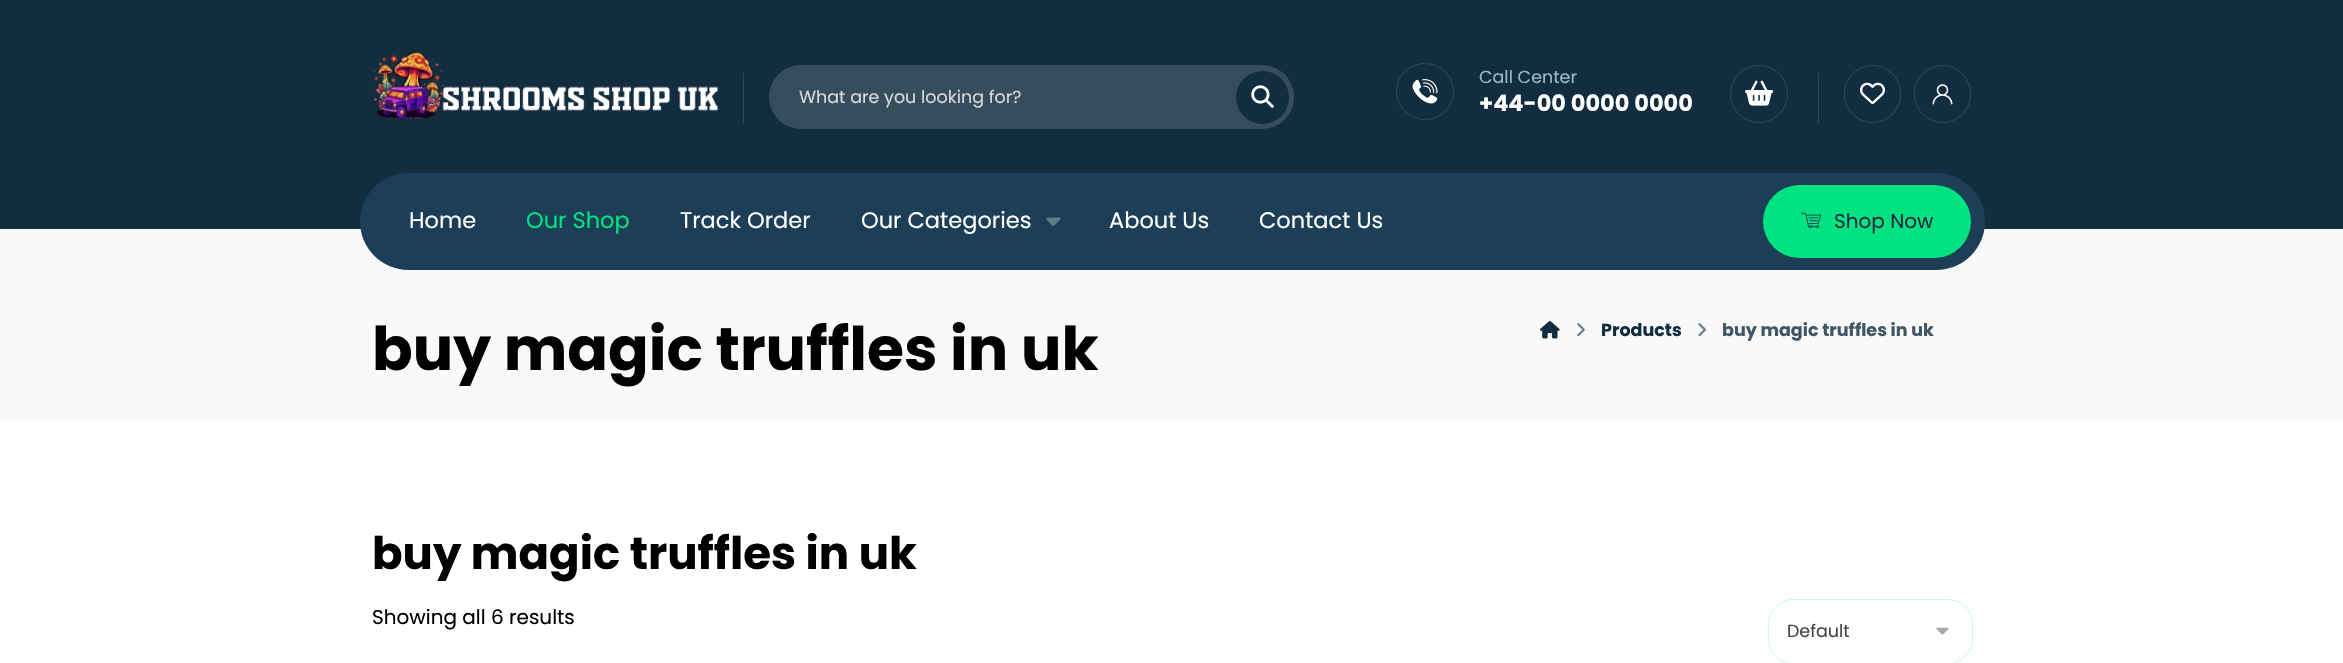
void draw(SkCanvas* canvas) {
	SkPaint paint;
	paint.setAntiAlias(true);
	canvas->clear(0xffffffff);
	paint.setColor(0xff122d40);
	canvas->drawRect(SkRect::MakeXYWH(0, 0, 2343, 229), paint);
	canvas->drawImageRect(SkImages::DeferredFromEncodedData(SkData::MakeFromFileName("img1.png")), SkRect::MakeXYWH(374, 51, 344, 68), SkSamplingOptions());
	paint.setColor(0xff304555);
	canvas->drawRect(SkRect::MakeXYWH(743, 73, 1, 50), paint);
	paint.setColor(0xff364d5d);
	canvas->drawRoundRect(SkRect::MakeXYWH(769, 65, 525, 64), 32, 32, paint);
	SkFont f1(fontMgr->matchFamilyStyle("Poppins", SkFontStyle::Normal()), 17.5);
	f1.setSubpixel(true);
	paint.setColor(0xffd7dbdf);
	canvas->drawString("What are you looking for?", 799, 103, f1, paint);
	paint.setColor(0xff122d40);
	canvas->drawCircle(1262.5, 97.5, 26.5, paint);
	canvas->drawImageRect(SkImages::DeferredFromEncodedData(SkData::MakeFromFileName("img2.png")), SkRect::MakeXYWH(1251, 85, 23, 23), SkSamplingOptions());
	paint.setStroke(true);
	paint.setStrokeWidth(1);
	paint.setColor(0xff2e485c);
	canvas->drawRoundRect(SkRect::MakeXYWH(1396.5, 63.5, 57, 56), 28, 28, paint);
	canvas->drawImageRect(SkImages::DeferredFromEncodedData(SkData::MakeFromFileName("img3.png")), SkRect::MakeXYWH(1412, 79, 26, 25), SkSamplingOptions());
	paint.setStroke(false);
	paint.setColor(0xff9fb6cb);
	canvas->drawString("Call Center", 1479, 83, f1, paint);
	SkFont f2(fontMgr->matchFamilyStyle("Poppins", SkFontStyle::Bold()), 22.5);
	f2.setSubpixel(true);
	paint.setColor(0xffffffff);
	canvas->drawString("+44-00 0000 0000", 1479, 111, f2, paint);
	paint.setStroke(true);
	paint.setColor(0xff2e485c);
	canvas->drawCircle(1759, 94, 28.5, paint);
	canvas->drawImageRect(SkImages::DeferredFromEncodedData(SkData::MakeFromFileName("img4.png")), SkRect::MakeXYWH(1745, 80, 29, 26), SkSamplingOptions());
	paint.setStroke(false);
	paint.setColor(0xff304555);
	canvas->drawRect(SkRect::MakeXYWH(1818, 73, 1, 50), paint);
	paint.setStroke(true);
	paint.setColor(0xff2e485c);
	canvas->drawRoundRect(SkRect::MakeXYWH(1844.5, 65.5, 56, 57), 28, 28, paint);
	canvas->drawImageRect(SkImages::DeferredFromEncodedData(SkData::MakeFromFileName("img5.png")), SkRect::MakeXYWH(1860, 82, 25, 22), SkSamplingOptions());
	canvas->drawRoundRect(SkRect::MakeXYWH(1914.5, 65.5, 56, 57), 28, 28, paint);
	canvas->drawImageRect(SkImages::DeferredFromEncodedData(SkData::MakeFromFileName("img6.png")), SkRect::MakeXYWH(1932, 84, 21, 21), SkSamplingOptions());
	paint.setStroke(false);
	paint.setColor(0xfff9f9f9);
	canvas->drawRect(SkRect::MakeXYWH(0, 229, 2343, 194), paint);
	paint.setColor(0xff1c3e56);
	canvas->drawRoundRect(SkRect::MakeXYWH(360, 173, 1625, 97), 48.5, 48.5, paint);
	SkFont f3(fontMgr->matchFamilyStyle("Poppins", SkFontStyle::Normal()), 22.5);
	f3.setSubpixel(true);
	paint.setColor(0xffffffff);
	canvas->drawString("Home", 409, 228, f3, paint);
	paint.setColor(0xff01e281);
	canvas->drawString("Our Shop", 526, 228, f3, paint);
	paint.setColor(0xffffffff);
	canvas->drawString("Track Order", 680, 228, f3, paint);
	canvas->drawString("Our Categories", 861, 228, f3, paint);
	canvas->drawImageRect(SkImages::DeferredFromEncodedData(SkData::MakeFromFileName("img7.png")), SkRect::MakeXYWH(1046, 217, 15, 9), SkSamplingOptions());
	canvas->drawString("About Us", 1109, 228, f3, paint);
	canvas->drawString("Contact Us", 1259, 228, f3, paint);
	paint.setColor(0xff01e281);
	canvas->drawRoundRect(SkRect::MakeXYWH(1763, 185, 208, 73), 36.5, 36.5, paint);
	canvas->drawImageRect(SkImages::DeferredFromEncodedData(SkData::MakeFromFileName("img8.png")), SkRect::MakeXYWH(1801, 212, 21, 17), SkSamplingOptions());
	SkFont f4(fontMgr->matchFamilyStyle("Poppins", SkFontStyle::Normal()), 20);
	f4.setSubpixel(true);
	paint.setColor(0xff122d40);
	canvas->drawString("Shop Now", 1834, 228, f4, paint);
	SkFont f5(fontMgr->matchFamilyStyle("Poppins", SkFontStyle::Bold()), 60);
	f5.setSubpixel(true);
	paint.setColor(0xff000000);
	canvas->drawString("buy magic truffles in uk", 372, 370, f5, paint);
	canvas->drawImageRect(SkImages::DeferredFromEncodedData(SkData::MakeFromFileName("img9.png")), SkRect::MakeXYWH(1540, 321, 20, 18), SkSamplingOptions());
	canvas->drawImageRect(SkImages::DeferredFromEncodedData(SkData::MakeFromFileName("img10.png")), SkRect::MakeXYWH(1577, 323, 8, 14), SkSamplingOptions());
	SkFont f6(fontMgr->matchFamilyStyle("Poppins", SkFontStyle::Bold()), 17.5);
	f6.setSubpixel(true);
	paint.setColor(0xff122d40);
	canvas->drawString("Products", 1601, 336, f6, paint);
	canvas->drawImageRect(SkImages::DeferredFromEncodedData(SkData::MakeFromFileName("img11.png")), SkRect::MakeXYWH(1698, 323, 9, 14), SkSamplingOptions());
	paint.setColor(0xff405665);
	canvas->drawString("buy magic truffles in uk", 1722, 336, f6, paint);
	SkFont f7(fontMgr->matchFamilyStyle("Poppins", SkFontStyle::Bold()), 45);
	f7.setSubpixel(true);
	paint.setColor(0xff000000);
	canvas->drawString("buy magic truffles in uk", 372, 569, f7, paint);
	canvas->drawString("Showing all 6 results", 372, 624, f4, paint);
	canvas->drawImageRect(SkImages::DeferredFromEncodedData(SkData::MakeFromFileName("img12.png")), SkRect::MakeXYWH(1936, 627, 13, 8), SkSamplingOptions());
	paint.setStroke(true);
	paint.setColor(0xffccf9e6);
	canvas->drawRoundRect(SkRect::MakeXYWH(1768.5, 599.5, 204, 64), 24.5, 24.5, paint);
	paint.setStroke(false);
	paint.setColor(0xff444444);
	canvas->drawString("Default", 1787, 637, f1, paint);
}
